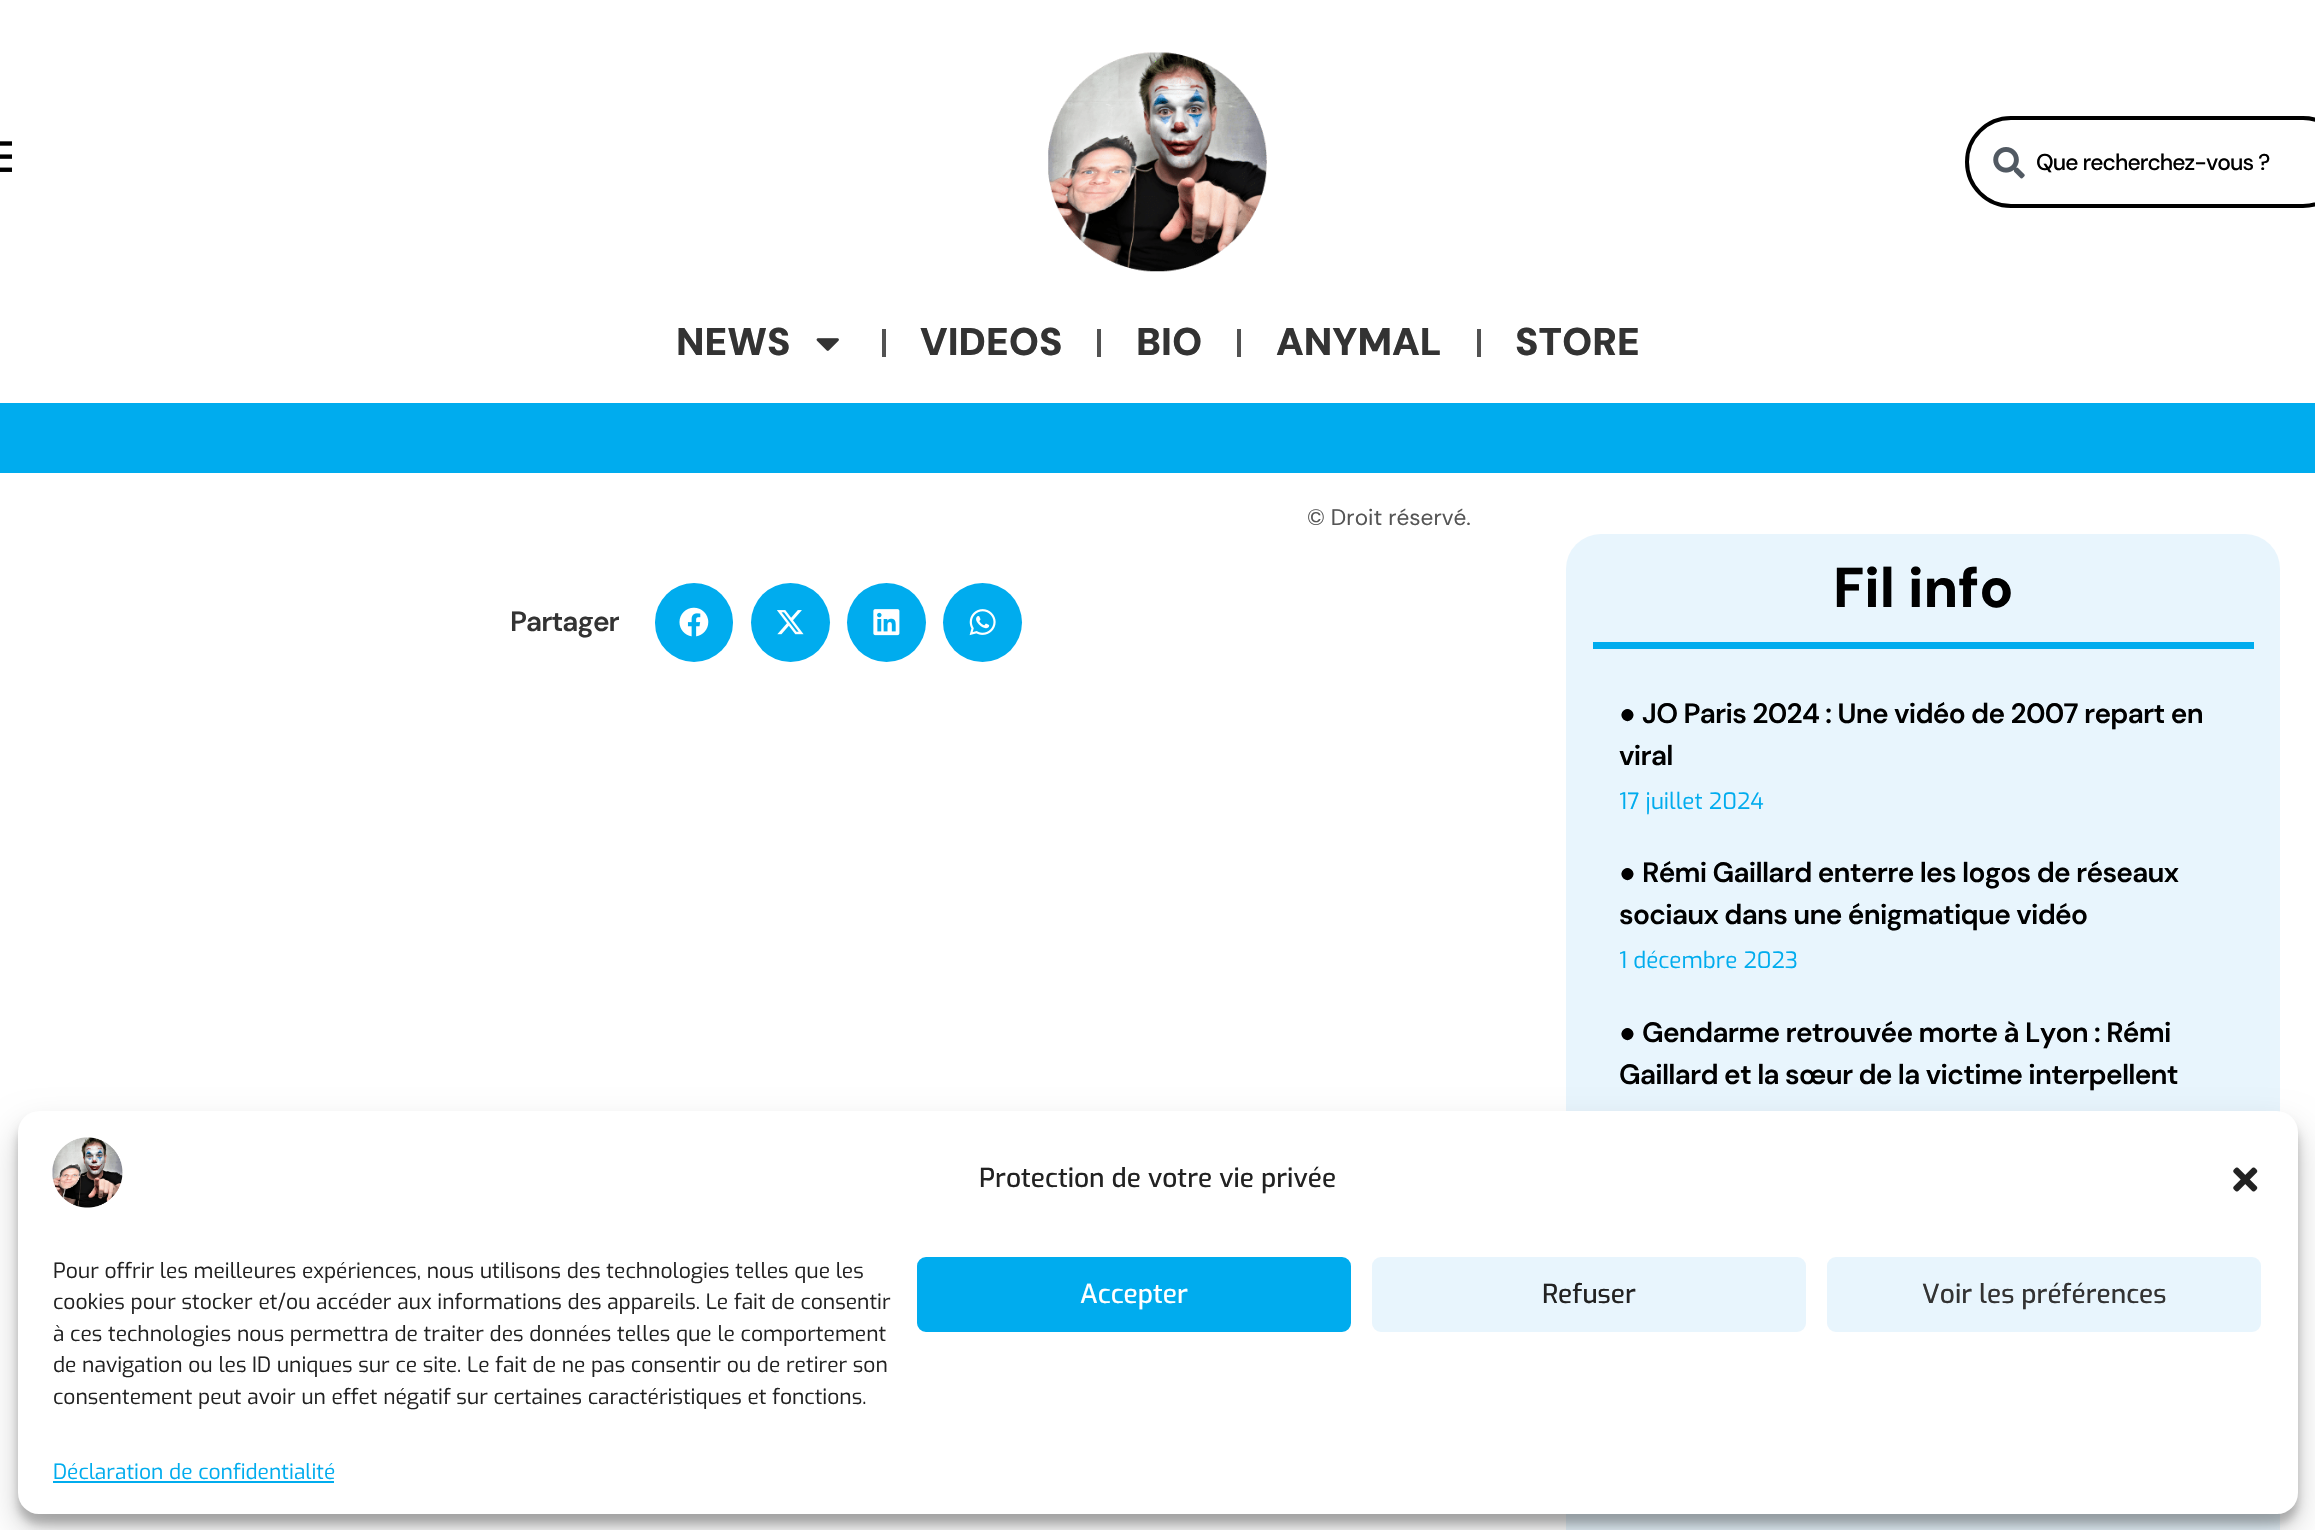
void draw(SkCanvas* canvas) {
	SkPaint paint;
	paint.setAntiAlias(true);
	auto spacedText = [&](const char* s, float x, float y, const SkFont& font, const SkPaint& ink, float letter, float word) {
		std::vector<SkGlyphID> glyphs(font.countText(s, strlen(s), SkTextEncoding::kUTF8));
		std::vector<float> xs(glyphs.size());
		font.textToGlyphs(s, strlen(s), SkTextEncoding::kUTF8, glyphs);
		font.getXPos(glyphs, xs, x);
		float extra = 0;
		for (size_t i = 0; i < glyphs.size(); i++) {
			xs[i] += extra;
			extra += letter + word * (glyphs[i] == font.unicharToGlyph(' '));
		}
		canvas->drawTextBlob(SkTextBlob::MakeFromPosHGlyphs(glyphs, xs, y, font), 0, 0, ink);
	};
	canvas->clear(0xffffffff);
	canvas->drawImageRect(SkImages::DeferredFromEncodedData(SkData::MakeFromFileName("img1.png")), SkRect::MakeXYWH(0, 141, 12, 31), SkSamplingOptions());
	canvas->drawImageRect(SkImages::DeferredFromEncodedData(SkData::MakeFromFileName("img2.png")), SkRect::MakeXYWH(1048, 52, 219, 220), SkSamplingOptions());
	paint.setStroke(true);
	paint.setStrokeWidth(4);
	paint.setColor(0xff000000);
	canvas->drawRoundRect(SkRect::MakeXYWH(1967, 118, 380, 88), 44, 44, paint);
	canvas->drawImageRect(SkImages::DeferredFromEncodedData(SkData::MakeFromFileName("img3.png")), SkRect::MakeXYWH(1993, 147, 32, 32), SkSamplingOptions());
	SkFont f1(fontMgr->matchFamilyStyle("DM Sans", SkFontStyle(500, SkFontStyle::kNormal_Width, SkFontStyle::kUpright_Slant)), 22.75);
	f1.setSubpixel(true);
	paint.setStroke(false);
	spacedText("Que recherchez-vous ?", 2036, 170, f1, paint, -0.9, 0);
	SkFont f2(fontMgr->matchFamilyStyle("DM Sans", SkFontStyle(900, SkFontStyle::kNormal_Width, SkFontStyle::kUpright_Slant)), 38.5);
	f2.setSubpixel(true);
	paint.setColor(0xff333333);
	canvas->drawString("NEWS", 676, 355, f2, paint);
	canvas->drawImageRect(SkImages::DeferredFromEncodedData(SkData::MakeFromFileName("img4.png")), SkRect::MakeXYWH(816, 338, 23, 13), SkSamplingOptions());
	paint.setColor(0xff525252);
	canvas->drawRect(SkRect::MakeXYWH(882, 329, 4, 28), paint);
	paint.setColor(0xff333333);
	canvas->drawString("VIDEOS", 920, 355, f2, paint);
	paint.setColor(0xff525252);
	canvas->drawRect(SkRect::MakeXYWH(1097, 329, 4, 28), paint);
	paint.setColor(0xff333333);
	canvas->drawString("BIO", 1136, 355, f2, paint);
	paint.setColor(0xff525252);
	canvas->drawRect(SkRect::MakeXYWH(1237, 329, 4, 28), paint);
	paint.setColor(0xff333333);
	canvas->drawString("ANYMAL", 1276, 355, f2, paint);
	paint.setColor(0xff525252);
	canvas->drawRect(SkRect::MakeXYWH(1477, 329, 4, 28), paint);
	paint.setColor(0xff333333);
	canvas->drawString("STORE", 1515, 355, f2, paint);
	paint.setColor(0xff00acee);
	canvas->drawRect(SkRect::MakeXYWH(0, 403, 2315, 70), paint);
	SkFont f3(fontMgr->matchFamilyStyle("DM Sans", SkFontStyle::Normal()), 22.5);
	f3.setSubpixel(true);
	paint.setColor(0xff555555);
	canvas->drawString("© Droit réservé.", 1307, 525, f3, paint);
	SkFont f4(fontMgr->matchFamilyStyle("DM Sans", SkFontStyle(600, SkFontStyle::kNormal_Width, SkFontStyle::kUpright_Slant)), 28);
	f4.setSubpixel(true);
	paint.setColor(0xff333333);
	spacedText("Partager", 510, 631, f4, paint, -0.9, 0);
	paint.setColor(0xff00acee);
	canvas->drawRoundRect(SkRect::MakeXYWH(655, 583, 78, 79), 39, 39, paint);
	canvas->drawImageRect(SkImages::DeferredFromEncodedData(SkData::MakeFromFileName("img5.png")), SkRect::MakeXYWH(679, 607, 30, 30), SkSamplingOptions());
	canvas->drawCircle(790.5, 622.5, 39.5, paint);
	canvas->drawImageRect(SkImages::DeferredFromEncodedData(SkData::MakeFromFileName("img6.png")), SkRect::MakeXYWH(777, 610, 27, 25), SkSamplingOptions());
	canvas->drawCircle(886.5, 622.5, 39.5, paint);
	canvas->drawImageRect(SkImages::DeferredFromEncodedData(SkData::MakeFromFileName("img7.png")), SkRect::MakeXYWH(873, 609, 27, 27), SkSamplingOptions());
	canvas->drawCircle(982.5, 622.5, 39.5, paint);
	canvas->drawImageRect(SkImages::DeferredFromEncodedData(SkData::MakeFromFileName("img8.png")), SkRect::MakeXYWH(969, 609, 27, 27), SkSamplingOptions());
	paint.setColor(0xffe8f5fd);
	canvas->drawRoundRect(SkRect::MakeXYWH(1566, 534, 714, 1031), 35, 35, paint);
	SkFont f5(fontMgr->matchFamilyStyle("DM Sans", SkFontStyle(800, SkFontStyle::kNormal_Width, SkFontStyle::kUpright_Slant)), 56);
	f5.setSubpixel(true);
	paint.setColor(0xff000000);
	canvas->drawString("Fil info", 1833, 607, f5, paint);
	paint.setColor(0xff00acee);
	canvas->drawRect(SkRect::MakeXYWH(1593, 642, 661, 7), paint);
	SkFont f6(fontMgr->matchFamilyStyle("Liberation Sans", SkFontStyle::Bold()), 28);
	f6.setSubpixel(true);
	paint.setColor(0xff000000);
	spacedText("●", 1619, 723, f6, paint, -0.7, 0);
	spacedText("JO Paris 2024 : Une vidéo de 2007 repart en", 1642, 723, f4, paint, -0.7, 0);
	spacedText("viral", 1619, 765, f4, paint, -0.7, 0);
	SkFont f7(fontMgr->matchFamilyStyle("Exo", SkFontStyle::Normal()), 22.5);
	f7.setSubpixel(true);
	paint.setColor(0xff00acee);
	canvas->drawString("17 juillet 2024", 1619, 809, f7, paint);
	paint.setColor(0xff000000);
	spacedText("●", 1619, 882, f6, paint, -0.7, 0);
	spacedText("Rémi Gaillard enterre les logos de réseaux", 1642, 882, f4, paint, -0.7, 0);
	spacedText("sociaux dans une énigmatique vidéo", 1619, 924, f4, paint, -0.7, 0);
	paint.setColor(0xff00acee);
	canvas->drawString("1 décembre 2023", 1619, 968, f7, paint);
	paint.setColor(0xff000000);
	spacedText("●", 1619, 1042, f6, paint, -0.7, 0);
	spacedText("Gendarme retrouvée morte à Lyon : Rémi", 1642, 1042, f4, paint, -0.7, 0);
	spacedText("Gaillard et la sœur de la victime interpellent", 1619, 1084, f4, paint, -0.7, 0);
	paint.setColor(0x3b000000);
	paint.setMaskFilter(SkMaskFilter::MakeBlur(kNormal_SkBlurStyle, 5));
	canvas->drawRoundRect(SkRect::MakeXYWH(18, 1122, 2280, 402), 21, 21, paint);
	paint.setMaskFilter(nullptr);
	paint.setColor(0x30000000);
	paint.setMaskFilter(SkMaskFilter::MakeBlur(kNormal_SkBlurStyle, 17.5));
	canvas->drawRoundRect(SkRect::MakeXYWH(18, 1129, 2280, 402), 21, 21, paint);
	paint.setMaskFilter(nullptr);
	paint.setColor(0xffffffff);
	canvas->drawRoundRect(SkRect::MakeXYWH(18, 1111, 2280, 403), 21, 21, paint);
	canvas->drawImageRect(SkImages::DeferredFromEncodedData(SkData::MakeFromFileName("img9.png")), SkRect::MakeXYWH(52, 1137, 71, 71), SkSamplingOptions());
	SkFont f8(fontMgr->matchFamilyStyle("Exo", SkFontStyle(500, SkFontStyle::kNormal_Width, SkFontStyle::kUpright_Slant)), 26.25);
	f8.setSubpixel(true);
	paint.setColor(0xff222222);
	canvas->drawString("Protection de votre vie privée", 979, 1187, f8, paint);
	canvas->drawImageRect(SkImages::DeferredFromEncodedData(SkData::MakeFromFileName("img10.png")), SkRect::MakeXYWH(2233, 1167, 25, 25), SkSamplingOptions());
	SkFont f9(fontMgr->matchFamilyStyle("Exo", SkFontStyle::Normal()), 21);
	f9.setSubpixel(true);
	canvas->drawString("Pour offrir les meilleures expériences, nous utilisons des technologies telles que les", 53, 1278, f9, paint);
	canvas->drawString("cookies pour stocker et/ou accéder aux informations des appareils. Le fait de consentir", 53, 1309, f9, paint);
	canvas->drawString("à ces technologies nous permettra de traiter des données telles que le comportement", 53, 1341, f9, paint);
	canvas->drawString("de navigation ou les ID uniques sur ce site. Le fait de ne pas consentir ou de retirer son", 53, 1372, f9, paint);
	canvas->drawString("consentement peut avoir un effet négatif sur certaines caractéristiques et fonctions.", 53, 1404, f9, paint);
	paint.setColor(0xff00acee);
	canvas->drawRoundRect(SkRect::MakeXYWH(916, 1256, 436, 77), 10, 10, paint);
	paint.setStroke(true);
	paint.setStrokeWidth(2);
	paint.setColor(0xffffffff);
	canvas->drawRoundRect(SkRect::MakeXYWH(916, 1256, 436, 77), 10, 10, paint);
	paint.setStroke(false);
	canvas->drawString("Accepter", 1080, 1303, f8, paint);
	paint.setColor(0xffe8f5fd);
	canvas->drawRoundRect(SkRect::MakeXYWH(1371, 1256, 436, 77), 10, 10, paint);
	paint.setStroke(true);
	paint.setColor(0xffffffff);
	canvas->drawRoundRect(SkRect::MakeXYWH(1371, 1256, 436, 77), 10, 10, paint);
	paint.setStroke(false);
	paint.setColor(0xff222222);
	canvas->drawString("Refuser", 1542, 1303, f8, paint);
	paint.setColor(0xffe8f5fd);
	canvas->drawRoundRect(SkRect::MakeXYWH(1826, 1256, 436, 77), 10, 10, paint);
	paint.setStroke(true);
	paint.setColor(0xffffffff);
	canvas->drawRoundRect(SkRect::MakeXYWH(1826, 1256, 436, 77), 10, 10, paint);
	paint.setStroke(false);
	paint.setColor(0xff333333);
	canvas->drawString("Voir les préférences", 1922, 1303, f8, paint);
	paint.setColor(0xff00acee);
	canvas->drawString("Déclaration de confidentialité", 53, 1479, f9, paint);
	canvas->drawRect(SkRect::MakeXYWH(53, 1481, 281, 2), paint);
}
